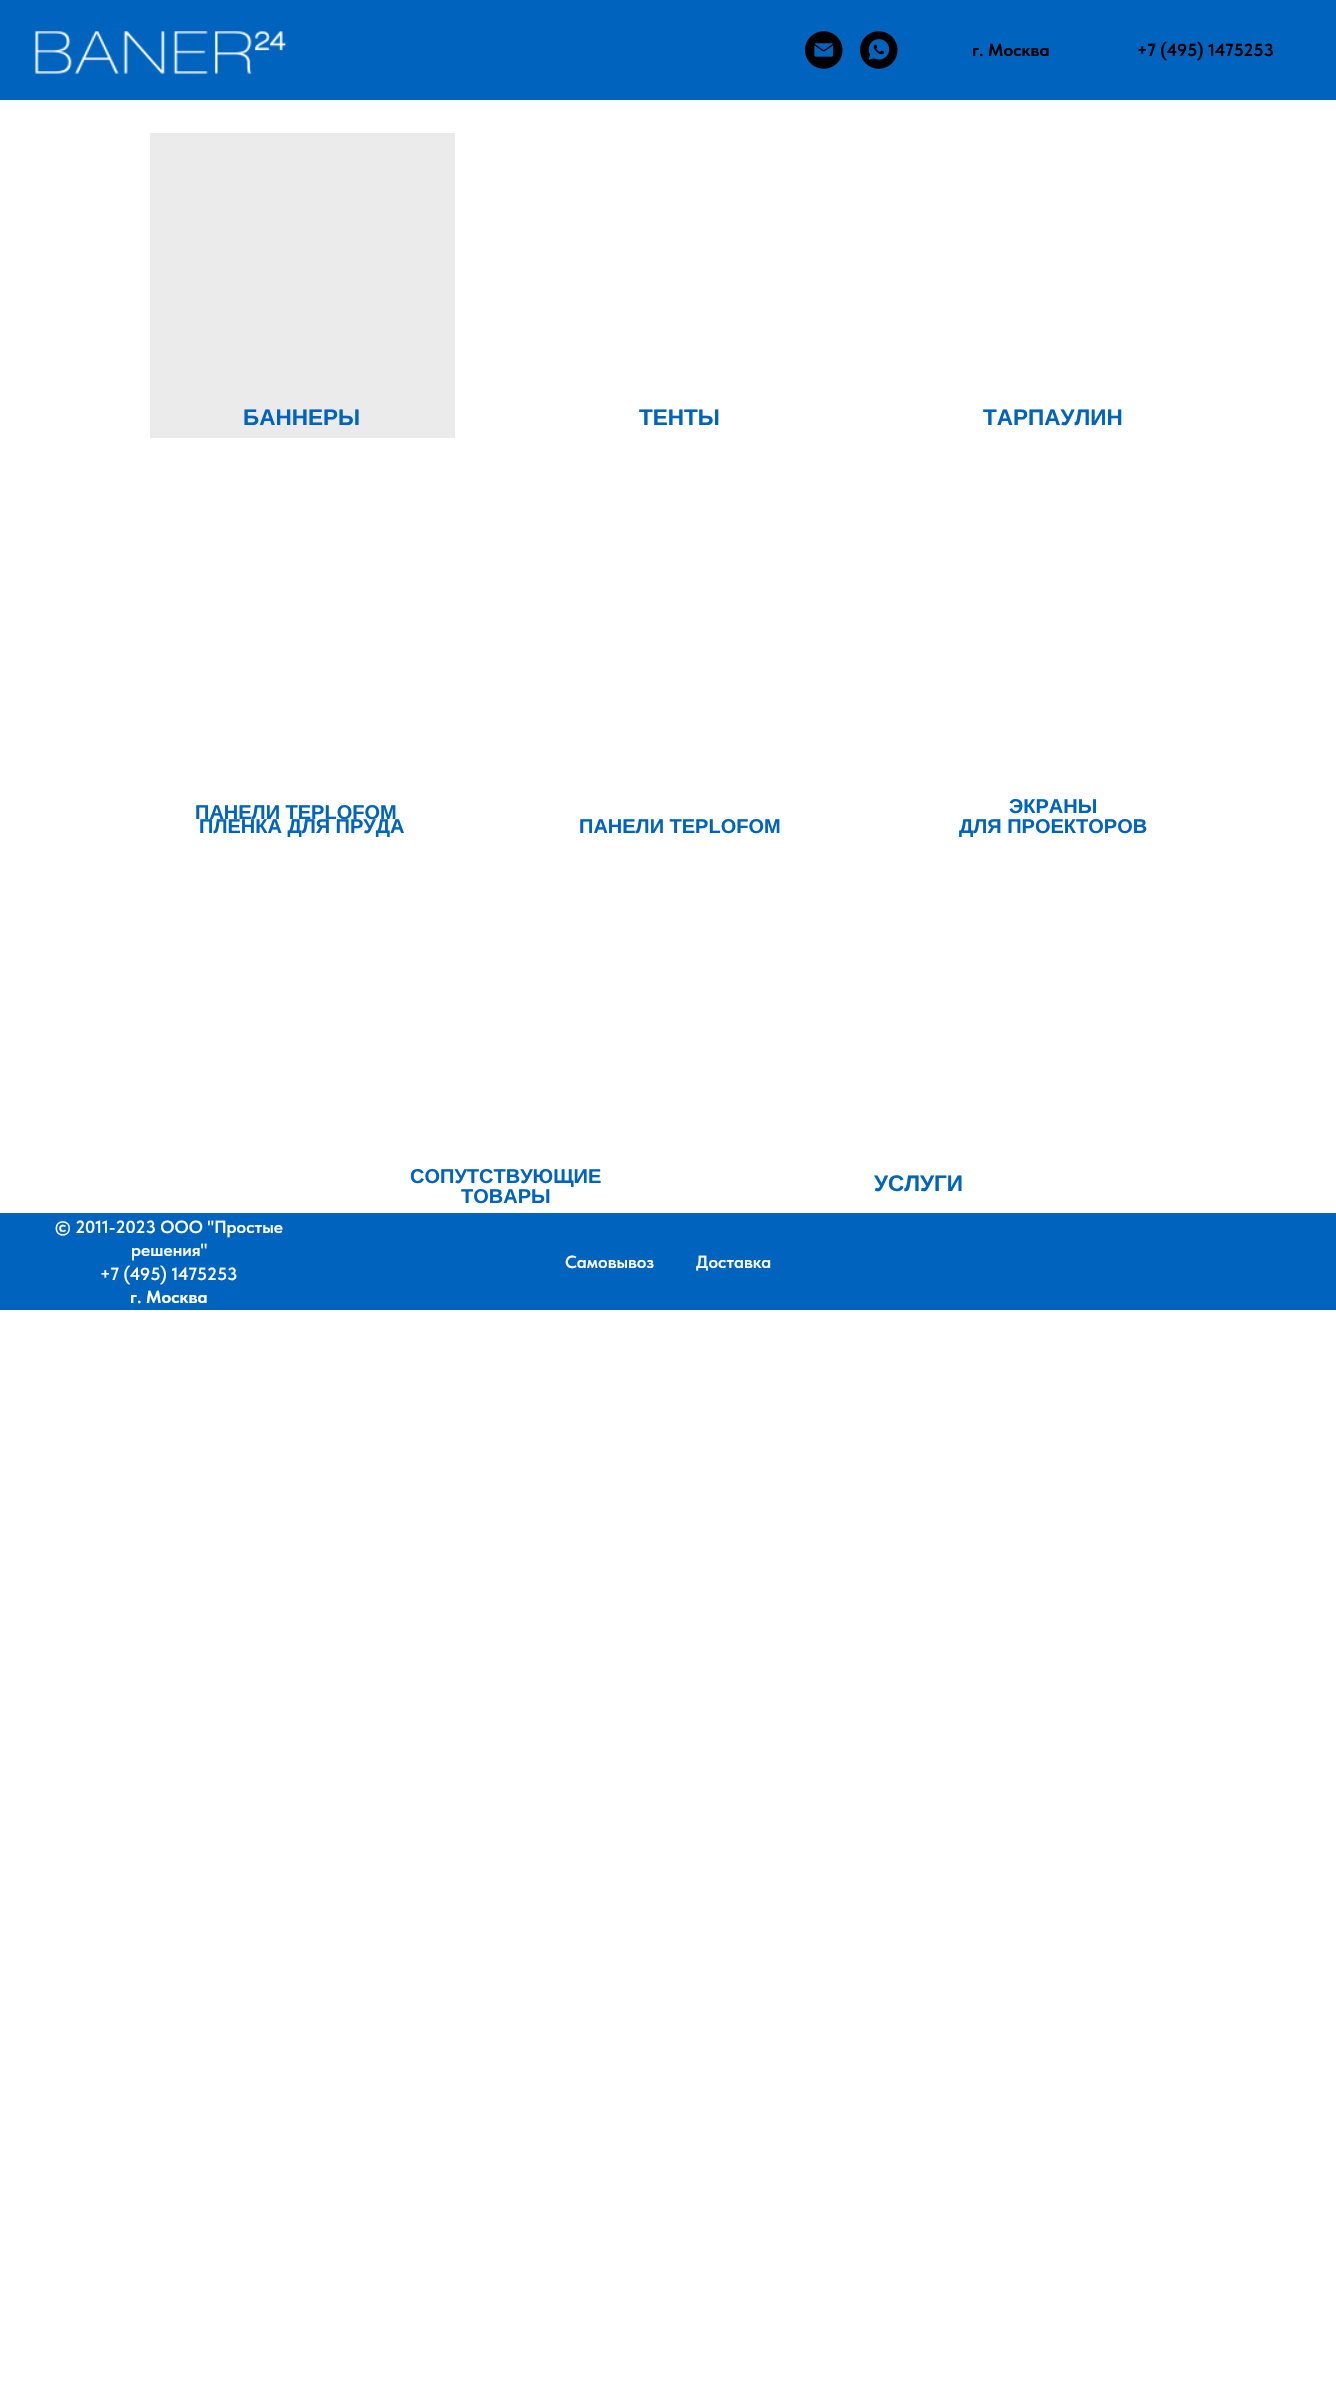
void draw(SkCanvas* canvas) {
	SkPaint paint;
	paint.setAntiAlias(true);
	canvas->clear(0xffffffff);
	paint.setColor(0xff0063be);
	canvas->drawRect(SkRect::MakeXYWH(0, 0, 1336, 100), paint);
	canvas->drawImageRect(SkImages::DeferredFromEncodedData(SkData::MakeFromFileName("img1.png")), SkRect::MakeXYWH(34, 31, 253, 43), SkSamplingOptions());
	canvas->drawImageRect(SkImages::DeferredFromEncodedData(SkData::MakeFromFileName("img2.png")), SkRect::MakeXYWH(805, 31, 38, 38), SkSamplingOptions());
	canvas->drawImageRect(SkImages::DeferredFromEncodedData(SkData::MakeFromFileName("img3.png")), SkRect::MakeXYWH(860, 31, 38, 38), SkSamplingOptions());
	SkFont f1(fontMgr->matchFamilyStyle("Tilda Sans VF", SkFontStyle::Bold()), 17.5);
	f1.setSubpixel(true);
	paint.setColor(0xff000000);
	canvas->drawString("г. Москва", 972, 56, f1, paint);
	canvas->drawString("+7 (495) 1475253", 1137, 56, f1, paint);
	paint.setColor(0xffebebeb);
	canvas->drawRect(SkRect::MakeXYWH(150, 133, 305, 305), paint);
	SkFont f2(fontMgr->matchFamilyStyle("Liberation Sans", SkFontStyle::Bold()), 22.5);
	f2.setSubpixel(true);
	paint.setColor(0xff0063be);
	canvas->drawString("БАННЕРЫ", 243, 425, f2, paint);
	canvas->drawString("ТЕНТЫ", 639, 425, f2, paint);
	canvas->drawString("ТАРПАУЛИН", 983, 425, f2, paint);
	SkFont f3(fontMgr->matchFamilyStyle("Liberation Sans", SkFontStyle::Bold()), 20);
	f3.setSubpixel(true);
	canvas->drawString("ПАНЕЛИ TEPLOFOM", 195, 819, f3, paint);
	canvas->drawString("ЭКРАНЫ", 1009, 813, f3, paint);
	canvas->drawString("ДЛЯ ПРОЕКТОРОВ", 959, 833, f3, paint);
	canvas->drawString("ПЛЕНКА ДЛЯ ПРУДА", 199, 833, f3, paint);
	canvas->drawString("ПАНЕЛИ TEPLOFOM", 579, 833, f3, paint);
	canvas->drawString("СОПУТСТВУЮЩИЕ", 410, 1183, f3, paint);
	canvas->drawString("ТОВАРЫ", 461, 1203, f3, paint);
	canvas->drawString("УСЛУГИ", 874, 1191, f2, paint);
	canvas->drawRect(SkRect::MakeXYWH(0, 1213, 1336, 97), paint);
	SkFont f4(fontMgr->matchFamilyStyle("Tilda Sans VF", SkFontStyle(600, SkFontStyle::kNormal_Width, SkFontStyle::kUpright_Slant)), 17.5);
	f4.setSubpixel(true);
	paint.setColor(0xffffffff);
	canvas->drawString("© 2011-2023 ООО \"Простые", 55, 1233, f4, paint);
	canvas->drawString("решения\"", 131, 1256, f4, paint);
	canvas->drawString("+7 (495) 1475253", 100, 1280, f4, paint);
	canvas->drawString("г. Москва", 130, 1303, f1, paint);
	canvas->drawString("Самовывоз", 565, 1268, f4, paint);
	canvas->drawString("Доставка", 696, 1268, f4, paint);
}
